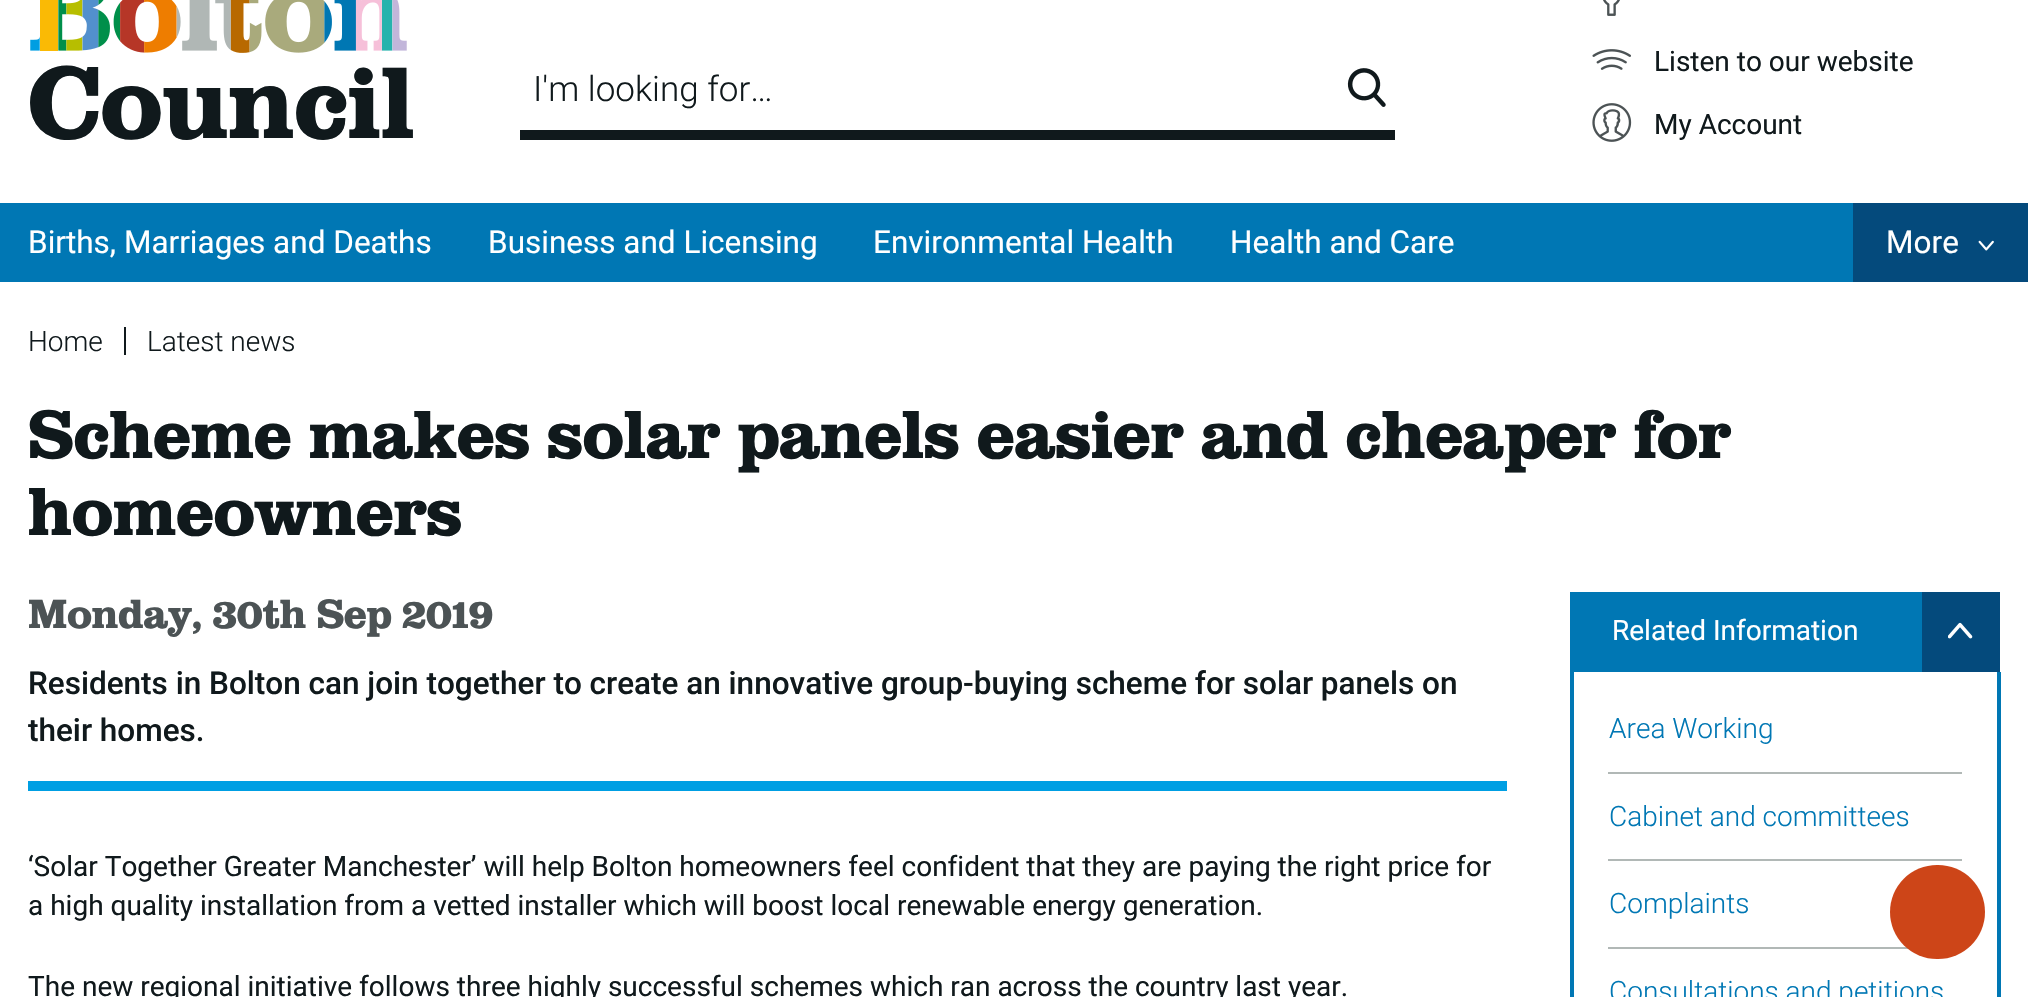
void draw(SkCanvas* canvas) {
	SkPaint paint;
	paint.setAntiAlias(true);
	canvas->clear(0xffffffff);
	canvas->drawImageRect(SkImages::DeferredFromEncodedData(SkData::MakeFromFileName("img1.png")), SkRect::MakeXYWH(30, 0, 377, 55), SkSamplingOptions());
	SkFont f1(fontMgr->matchFamilyStyle("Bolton", SkFontStyle::Normal()), 105);
	f1.setSubpixel(true);
	paint.setColor(0xff10191c);
	canvas->drawString("Council", 28, 138, f1, paint);
	SkFont f2(fontMgr->matchFamilyStyle("Roboto", SkFontStyle(300, SkFontStyle::kNormal_Width, SkFontStyle::kUpright_Slant)), 35);
	f2.setSubpixel(true);
	canvas->drawString("I'm looking for…", 533, 101, f2, paint);
	canvas->drawImageRect(SkImages::DeferredFromEncodedData(SkData::MakeFromFileName("img2.png")), SkRect::MakeXYWH(1347, 68, 39, 39), SkSamplingOptions());
	canvas->drawRect(SkRect::MakeXYWH(520, 130, 875, 10), paint);
	canvas->drawImageRect(SkImages::DeferredFromEncodedData(SkData::MakeFromFileName("img3.png")), SkRect::MakeXYWH(1603, 0, 17, 16), SkSamplingOptions());
	canvas->drawImageRect(SkImages::DeferredFromEncodedData(SkData::MakeFromFileName("img4.png")), SkRect::MakeXYWH(1592, 49, 39, 21), SkSamplingOptions());
	SkFont f3(fontMgr->matchFamilyStyle("Roboto", SkFontStyle::Normal()), 28);
	f3.setSubpixel(true);
	canvas->drawString("Listen to our website", 1654, 71, f3, paint);
	canvas->drawImageRect(SkImages::DeferredFromEncodedData(SkData::MakeFromFileName("img5.png")), SkRect::MakeXYWH(1592, 103, 40, 39), SkSamplingOptions());
	canvas->drawString("My Account", 1654, 134, f3, paint);
	paint.setColor(0xff0077b4);
	canvas->drawRect(SkRect::MakeXYWH(0, 203, 1853, 79), paint);
	SkFont f4(fontMgr->matchFamilyStyle("Roboto", SkFontStyle::Normal()), 31.5);
	f4.setSubpixel(true);
	paint.setColor(0xffffffff);
	canvas->drawString("Births, Marriages and Deaths", 28, 253, f4, paint);
	canvas->drawString("Business and Licensing", 488, 253, f4, paint);
	canvas->drawString("Environmental Health", 873, 253, f4, paint);
	canvas->drawString("Health and Care", 1230, 253, f4, paint);
	paint.setColor(0xff044a7c);
	canvas->drawRect(SkRect::MakeXYWH(1853, 203, 175, 79), paint);
	paint.setColor(0xffffffff);
	canvas->drawString("More", 1886, 253, f4, paint);
	canvas->drawImageRect(SkImages::DeferredFromEncodedData(SkData::MakeFromFileName("img6.png")), SkRect::MakeXYWH(1978, 240, 16, 11), SkSamplingOptions());
	SkFont f5(fontMgr->matchFamilyStyle("Roboto", SkFontStyle(300, SkFontStyle::kNormal_Width, SkFontStyle::kUpright_Slant)), 28);
	f5.setSubpixel(true);
	paint.setColor(0xff10191c);
	canvas->drawString("Home", 28, 351, f5, paint);
	canvas->drawRect(SkRect::MakeXYWH(124, 327, 2, 28), paint);
	canvas->drawString("Latest news", 147, 351, f5, paint);
	SkFont f6(fontMgr->matchFamilyStyle("Bolton", SkFontStyle::Normal()), 70);
	f6.setSubpixel(true);
	canvas->drawString("Scheme makes solar panels easier and cheaper for", 28, 458, f6, paint);
	canvas->drawString("homeowners", 28, 535, f6, paint);
	SkFont f7(fontMgr->matchFamilyStyle("Bolton", SkFontStyle::Normal()), 42);
	f7.setSubpixel(true);
	paint.setColor(0xff4c5355);
	canvas->drawString("Monday, 30th Sep 2019", 28, 628, f7, paint);
	paint.setColor(0xff009fe3);
	canvas->drawRect(SkRect::MakeXYWH(28, 781, 1479, 10), paint);
	SkFont f8(fontMgr->matchFamilyStyle("Roboto", SkFontStyle(500, SkFontStyle::kNormal_Width, SkFontStyle::kUpright_Slant)), 31.5);
	f8.setSubpixel(true);
	paint.setColor(0xff10191c);
	canvas->drawString("Residents in Bolton can join together to create an innovative group-buying scheme for solar panels on", 28, 694, f8, paint);
	canvas->drawString("their homes.", 28, 741, f8, paint);
	canvas->drawString("‘Solar Together Greater Manchester’ will help Bolton homeowners feel confident that they are paying the right price for", 28, 876, f3, paint);
	canvas->drawString("a high quality installation from a vetted installer which will boost local renewable energy generation.", 28, 915, f3, paint);
	canvas->drawString("The new regional initiative follows three highly successful schemes which ran across the country last year.", 28, 996, f3, paint);
	paint.setColor(0xff0077b4);
	canvas->drawRect(SkRect::MakeXYWH(1570, 592, 352, 80), paint);
	paint.setColor(0xffffffff);
	canvas->drawString("Related Information", 1612, 640, f3, paint);
	paint.setColor(0xff044a7c);
	canvas->drawRect(SkRect::MakeXYWH(1922, 592, 78, 80), paint);
	canvas->drawImageRect(SkImages::DeferredFromEncodedData(SkData::MakeFromFileName("img7.png")), SkRect::MakeXYWH(1948, 622, 25, 17), SkSamplingOptions());
	paint.setColor(0xff0077b4);
	canvas->drawRect(SkRect::MakeXYWH(1997, 672, 4, 325), paint);
	canvas->drawRect(SkRect::MakeXYWH(1570, 672, 4, 325), paint);
	paint.setColor(0xffb1b8b6);
	canvas->drawRect(SkRect::MakeXYWH(1608, 772, 354, 2), paint);
	paint.setColor(0xff0077b4);
	canvas->drawString("Area Working", 1609, 738, f5, paint);
	paint.setColor(0xffb1b8b6);
	canvas->drawRect(SkRect::MakeXYWH(1608, 859, 354, 2), paint);
	paint.setColor(0xff0077b4);
	canvas->drawString("Cabinet and committees", 1609, 826, f5, paint);
	paint.setColor(0xffb1b8b6);
	canvas->drawRect(SkRect::MakeXYWH(1608, 947, 300, 2), paint);
	paint.setColor(0xff0077b4);
	canvas->drawString("Complaints", 1609, 913, f5, paint);
	canvas->drawString("Consultations and petitions", 1609, 1001, f5, paint);
	paint.setColor(0xffcd4518);
	canvas->drawRoundRect(SkRect::MakeXYWH(1890, 865, 95, 94), 47, 47, paint);
}
